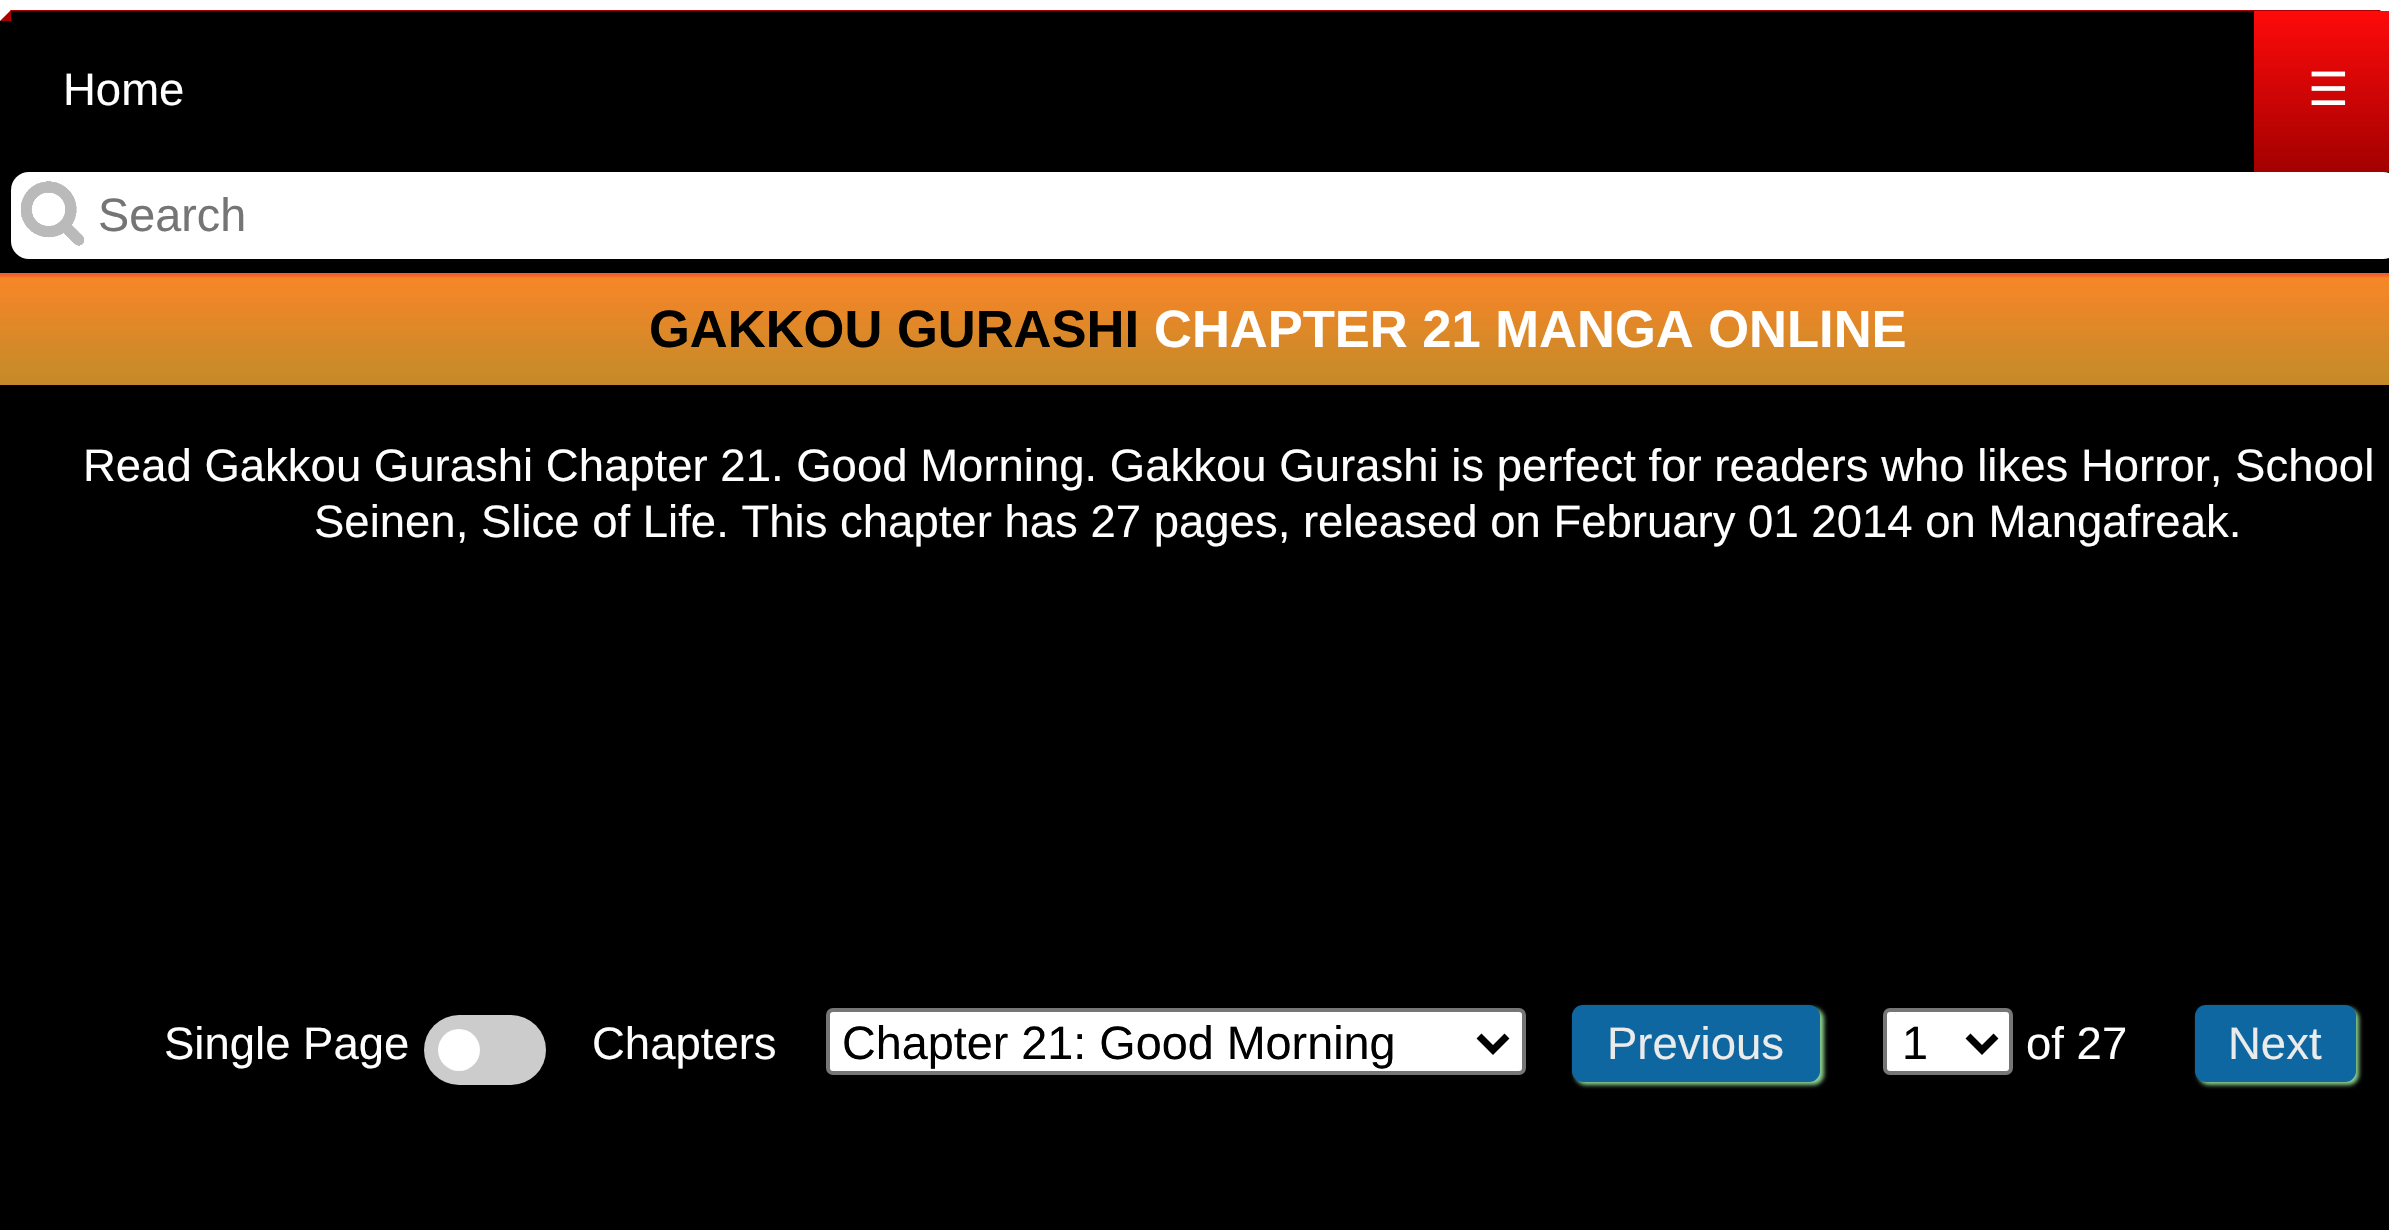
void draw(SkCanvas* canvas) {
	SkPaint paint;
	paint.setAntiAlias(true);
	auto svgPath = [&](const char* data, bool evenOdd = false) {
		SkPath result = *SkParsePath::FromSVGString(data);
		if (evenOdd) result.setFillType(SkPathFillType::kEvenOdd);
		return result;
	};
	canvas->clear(0xff000000);
	paint.setColor(0xffffffff);
	canvas->drawRect(SkRect::MakeXYWH(0, 0, 2389, 11), paint);
	canvas->drawPath(svgPath("M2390.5 0V21L2380 10.5Z"), paint);
	paint.setColor(0xffaa0000);
	canvas->drawPath(svgPath("M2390 21H0L10 10H2380Z"), paint);
	paint.setColor(0xffffffff);
	canvas->drawPath(svgPath("M0 21V0L10.5 10.5Z"), paint);
	paint.setColor(0xff000000);
	canvas->drawRect(SkRect::MakeXYWH(11, 11, 2378, 10), paint);
	SkFont f1(fontMgr->matchFamilyStyle("Liberation Sans", SkFontStyle::Normal()), 45.5);
	f1.setSubpixel(true);
	paint.setColor(0xffffffff);
	canvas->drawString("Home", 63, 105, f1, paint);
	{
		const SkColor colors[] = {0xffff0a0a, 0xffa30000};
		const float stops[] = {0, 1};
		const SkPoint ends[] = {{2328, 10}, {2328, 172}};
		paint.setShader(SkGradientShader::MakeLinear(ends, colors, stops, 2, SkTileMode::kClamp));
		paint.setAlpha(255);
	}
	canvas->drawRect(SkRect::MakeXYWH(2254, 11, 135, 161), paint);
	SkFont f2(fontMgr->matchFamilyStyle("DejaVu Sans", SkFontStyle::Normal()), 45.5);
	f2.setSubpixel(true);
	paint.setShader(nullptr);
	paint.setColor(0xffffffff);
	canvas->drawString("☰", 2308, 105, f2, paint);
	canvas->drawRoundRect(SkRect::MakeXYWH(11, 172, 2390, 87), 18, 18, paint);
	canvas->drawImageRect(SkImages::DeferredFromEncodedData(SkData::MakeFromFileName("img1.png")), SkRect::MakeXYWH(21, 181, 63, 65), SkSamplingOptions());
	SkFont f3(fontMgr->matchFamilyStyle("Liberation Sans", SkFontStyle::Normal()), 46.75);
	f3.setSubpixel(true);
	paint.setColor(0xff757575);
	canvas->drawString("Search", 98, 231, f3, paint);
	canvas->drawImageRect(SkImages::DeferredFromEncodedData(SkData::MakeFromFileName("img2.png")), SkRect::MakeXYWH(0, 273, 2389, 112), SkSamplingOptions());
	SkFont f4(fontMgr->matchFamilyStyle("Liberation Sans", SkFontStyle::Bold()), 52.5);
	f4.setSubpixel(true);
	paint.setColor(0xff000000);
	canvas->drawString("GAKKOU GURASHI", 649, 347, f4, paint);
	paint.setColor(0xffffffff);
	canvas->drawString("CHAPTER 21 MANGA ONLINE", 1154, 347, f4, paint);
	canvas->drawString("Read Gakkou Gurashi Chapter 21. Good Morning. Gakkou Gurashi is perfect for readers who likes Horror, School", 83, 481, f1, paint);
	canvas->drawString("Seinen, Slice of Life. This chapter has 27 pages, released on February 01 2014 on Mangafreak.", 314, 537, f1, paint);
	canvas->drawString("Single Page", 164, 1059, f1, paint);
	paint.setColor(0xffcccccc);
	canvas->drawRoundRect(SkRect::MakeXYWH(424, 1015, 122, 70), 35, 35, paint);
	paint.setColor(0xffffffff);
	canvas->drawCircle(459, 1050, 21, paint);
	canvas->drawString("Chapters", 592, 1059, f1, paint);
	canvas->drawRoundRect(SkRect::MakeXYWH(828, 1010, 696, 63), 5, 5, paint);
	paint.setStroke(true);
	paint.setStrokeWidth(4);
	paint.setColor(0xff767676);
	canvas->drawRoundRect(SkRect::MakeXYWH(828, 1010, 696, 63), 5, 5, paint);
	paint.setStrokeWidth(7);
	paint.setColor(0xff000000);
	canvas->drawPath(svgPath("M1479 1036L1493 1050L1507 1036"), paint);
	paint.setStroke(false);
	canvas->drawString("Chapter 21: Good Morning", 842, 1059, f3, paint);
	paint.setColor(0xff8dd08f);
	paint.setMaskFilter(SkMaskFilter::MakeBlur(kNormal_SkBlurStyle, 2));
	canvas->drawRoundRect(SkRect::MakeXYWH(1575, 1008, 249, 77), 11, 11, paint);
	paint.setMaskFilter(nullptr);
	paint.setColor(0xff0f67a1);
	canvas->drawRoundRect(SkRect::MakeXYWH(1572, 1005, 248, 77), 11, 11, paint);
	paint.setColor(0xffebebeb);
	canvas->drawString("Previous", 1607, 1059, f1, paint);
	paint.setColor(0xffffffff);
	canvas->drawRoundRect(SkRect::MakeXYWH(1885, 1010, 126, 63), 5, 5, paint);
	paint.setStroke(true);
	paint.setStrokeWidth(4);
	paint.setColor(0xff767676);
	canvas->drawRoundRect(SkRect::MakeXYWH(1885, 1010, 126, 63), 5, 5, paint);
	paint.setStrokeWidth(7);
	paint.setColor(0xff000000);
	canvas->drawPath(svgPath("M1968 1036L1982 1050L1996 1036"), paint);
	paint.setStroke(false);
	canvas->drawString("1", 1902, 1059, f3, paint);
	paint.setColor(0xffffffff);
	canvas->drawString("of 27", 2026, 1059, f1, paint);
	paint.setColor(0xff8dd08f);
	paint.setMaskFilter(SkMaskFilter::MakeBlur(kNormal_SkBlurStyle, 2));
	canvas->drawRoundRect(SkRect::MakeXYWH(2198, 1008, 161, 77), 11, 11, paint);
	paint.setMaskFilter(nullptr);
	paint.setColor(0xff0f67a1);
	canvas->drawRoundRect(SkRect::MakeXYWH(2195, 1005, 161, 77), 11, 11, paint);
	paint.setColor(0xffebebeb);
	canvas->drawString("Next", 2228, 1059, f1, paint);
}
